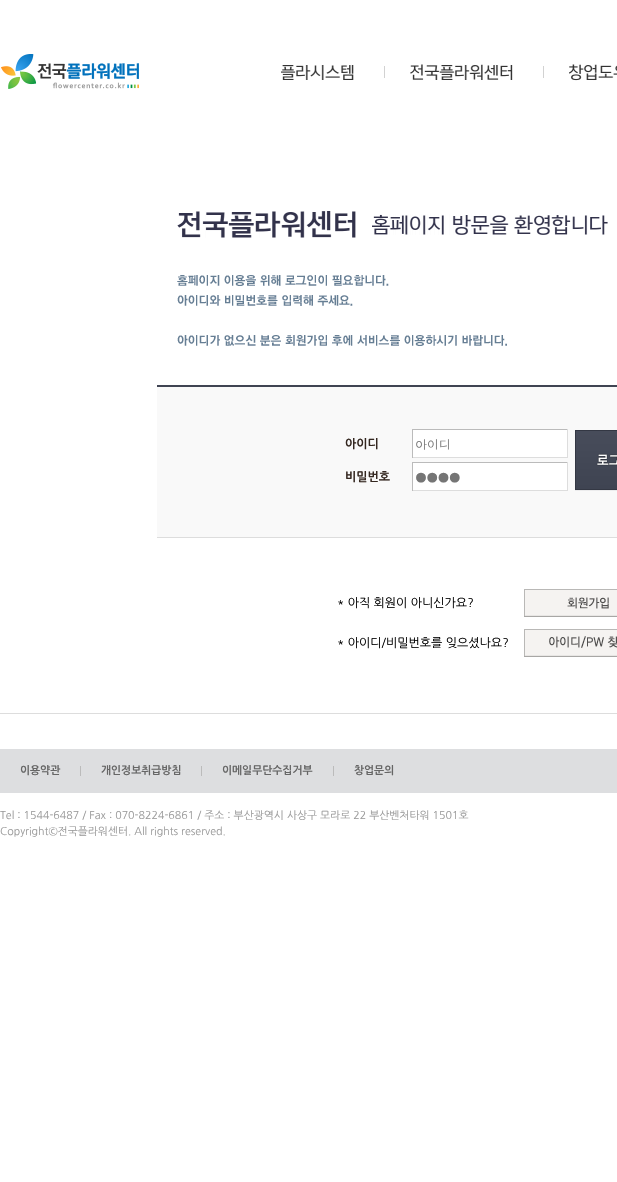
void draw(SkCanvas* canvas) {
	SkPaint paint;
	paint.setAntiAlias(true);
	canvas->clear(0xffffffff);
	canvas->drawImageRect(SkImages::DeferredFromEncodedData(SkData::MakeFromFileName("img1.png")), SkRect::MakeXYWH(1, 54, 138, 35), SkSamplingOptions());
	canvas->drawImageRect(SkImages::DeferredFromEncodedData(SkData::MakeFromFileName("img2.png")), SkRect::MakeXYWH(281, 65, 73, 15), SkSamplingOptions());
	paint.setColor(0xffd2d2d2);
	canvas->drawRect(SkRect::MakeXYWH(384, 66, 1, 12), paint);
	canvas->drawImageRect(SkImages::DeferredFromEncodedData(SkData::MakeFromFileName("img3.png")), SkRect::MakeXYWH(410, 64, 103, 16), SkSamplingOptions());
	canvas->drawRect(SkRect::MakeXYWH(543, 66, 1, 12), paint);
	canvas->drawImageRect(SkImages::DeferredFromEncodedData(SkData::MakeFromFileName("img4.png")), SkRect::MakeXYWH(569, 64, 48, 17), SkSamplingOptions());
	canvas->drawImageRect(SkImages::DeferredFromEncodedData(SkData::MakeFromFileName("img5.png")), SkRect::MakeXYWH(177, 211, 179, 27), SkSamplingOptions());
	canvas->drawImageRect(SkImages::DeferredFromEncodedData(SkData::MakeFromFileName("img6.png")), SkRect::MakeXYWH(372, 214, 236, 21), SkSamplingOptions());
	canvas->drawImageRect(SkImages::DeferredFromEncodedData(SkData::MakeFromFileName("img7.png")), SkRect::MakeXYWH(177, 275, 330, 71), SkSamplingOptions());
	paint.setColor(0xfff9f9f9);
	canvas->drawRect(SkRect::MakeXYWH(157, 387, 460, 150), paint);
	paint.setColor(0xff3f4452);
	canvas->drawRect(SkRect::MakeXYWH(157, 385, 460, 2), paint);
	paint.setColor(0xffdddddd);
	canvas->drawRect(SkRect::MakeXYWH(157, 537, 460, 1), paint);
	SkFont f1(fontMgr->matchFamilyStyle("NanumGothic", SkFontStyle::Bold()), 12);
	f1.setSubpixel(true);
	paint.setColor(0xff342720);
	canvas->drawString("아이디", 345, 448, f1, paint);
	paint.setColor(0xffffffff);
	canvas->drawRect(SkRect::MakeXYWH(413, 430, 154, 27), paint);
	paint.setColor(0xffbbbbbb);
	canvas->drawRect(SkRect::MakeXYWH(412, 429, 156, 1), paint);
	paint.setColor(0xffdddddd);
	canvas->drawRect(SkRect::MakeXYWH(567, 429, 1, 29), paint);
	canvas->drawRect(SkRect::MakeXYWH(412, 457, 156, 1), paint);
	paint.setColor(0xffbbbbbb);
	canvas->drawRect(SkRect::MakeXYWH(412, 429, 1, 29), paint);
	SkFont f2(fontMgr->matchFamilyStyle("Dotum", SkFontStyle::Normal()), 12);
	f2.setSubpixel(true);
	paint.setColor(0xff757575);
	canvas->drawString("아이디", 415, 449, f2, paint);
	canvas->drawImageRect(SkImages::DeferredFromEncodedData(SkData::MakeFromFileName("img8.png")), SkRect::MakeXYWH(575, 430, 42, 61), SkSamplingOptions());
	paint.setColor(0xff342720);
	canvas->drawString("비밀번호", 345, 481, f1, paint);
	paint.setColor(0xffffffff);
	canvas->drawRect(SkRect::MakeXYWH(413, 463, 154, 27), paint);
	paint.setColor(0xffbbbbbb);
	canvas->drawRect(SkRect::MakeXYWH(412, 462, 156, 1), paint);
	paint.setColor(0xffdddddd);
	canvas->drawRect(SkRect::MakeXYWH(567, 462, 1, 29), paint);
	canvas->drawRect(SkRect::MakeXYWH(412, 490, 156, 1), paint);
	paint.setColor(0xffbbbbbb);
	canvas->drawRect(SkRect::MakeXYWH(412, 462, 1, 29), paint);
	paint.setColor(0xff757575);
	canvas->drawString("●●●●", 415, 482, f2, paint);
	SkFont f3(fontMgr->matchFamilyStyle("NanumGothic", SkFontStyle::Normal()), 12);
	f3.setSubpixel(true);
	paint.setColor(0xff000000);
	canvas->drawString("* 아직 회원이 아니신가요?", 337, 607, f3, paint);
	canvas->drawImageRect(SkImages::DeferredFromEncodedData(SkData::MakeFromFileName("img9.png")), SkRect::MakeXYWH(524, 589, 93, 28), SkSamplingOptions());
	canvas->drawString("* 아이디/비밀번호를 잊으셨나요?", 337, 647, f3, paint);
	canvas->drawImageRect(SkImages::DeferredFromEncodedData(SkData::MakeFromFileName("img10.png")), SkRect::MakeXYWH(524, 629, 93, 28), SkSamplingOptions());
	paint.setColor(0xffdddddd);
	canvas->drawRect(SkRect::MakeXYWH(0, 713, 617, 1), paint);
	paint.setColor(0xffdddee0);
	canvas->drawRect(SkRect::MakeXYWH(0, 749, 617, 44), paint);
	SkFont f4(fontMgr->matchFamilyStyle("NanumGothic", SkFontStyle::Bold()), 10.7);
	f4.setSubpixel(true);
	paint.setColor(0xff666666);
	canvas->drawString("이용약관", 20, 774, f4, paint);
	paint.setColor(0xffbbbbbb);
	canvas->drawRect(SkRect::MakeXYWH(80, 766, 1, 10), paint);
	paint.setColor(0xff666666);
	canvas->drawString("개인정보취급방침", 101, 774, f4, paint);
	paint.setColor(0xffbbbbbb);
	canvas->drawRect(SkRect::MakeXYWH(201, 766, 1, 10), paint);
	paint.setColor(0xff666666);
	canvas->drawString("이메일무단수집거부", 222, 774, f4, paint);
	paint.setColor(0xffbbbbbb);
	canvas->drawRect(SkRect::MakeXYWH(333, 766, 1, 10), paint);
	paint.setColor(0xff666666);
	canvas->drawString("창업문의", 354, 774, f4, paint);
	SkFont f5(fontMgr->matchFamilyStyle("NanumGothic", SkFontStyle::Normal()), 10.7);
	f5.setSubpixel(true);
	paint.setColor(0xff999999);
	canvas->drawString("Tel : 1544-6487 / Fax : 070-8224-6861 / 주소 : 부산광역시 사상구 모라로 22 부산벤처타워 1501호", 0, 819, f5, paint);
	canvas->drawString("Copyright©전국플라워센터. All rights reserved.", 0, 835, f5, paint);
}
